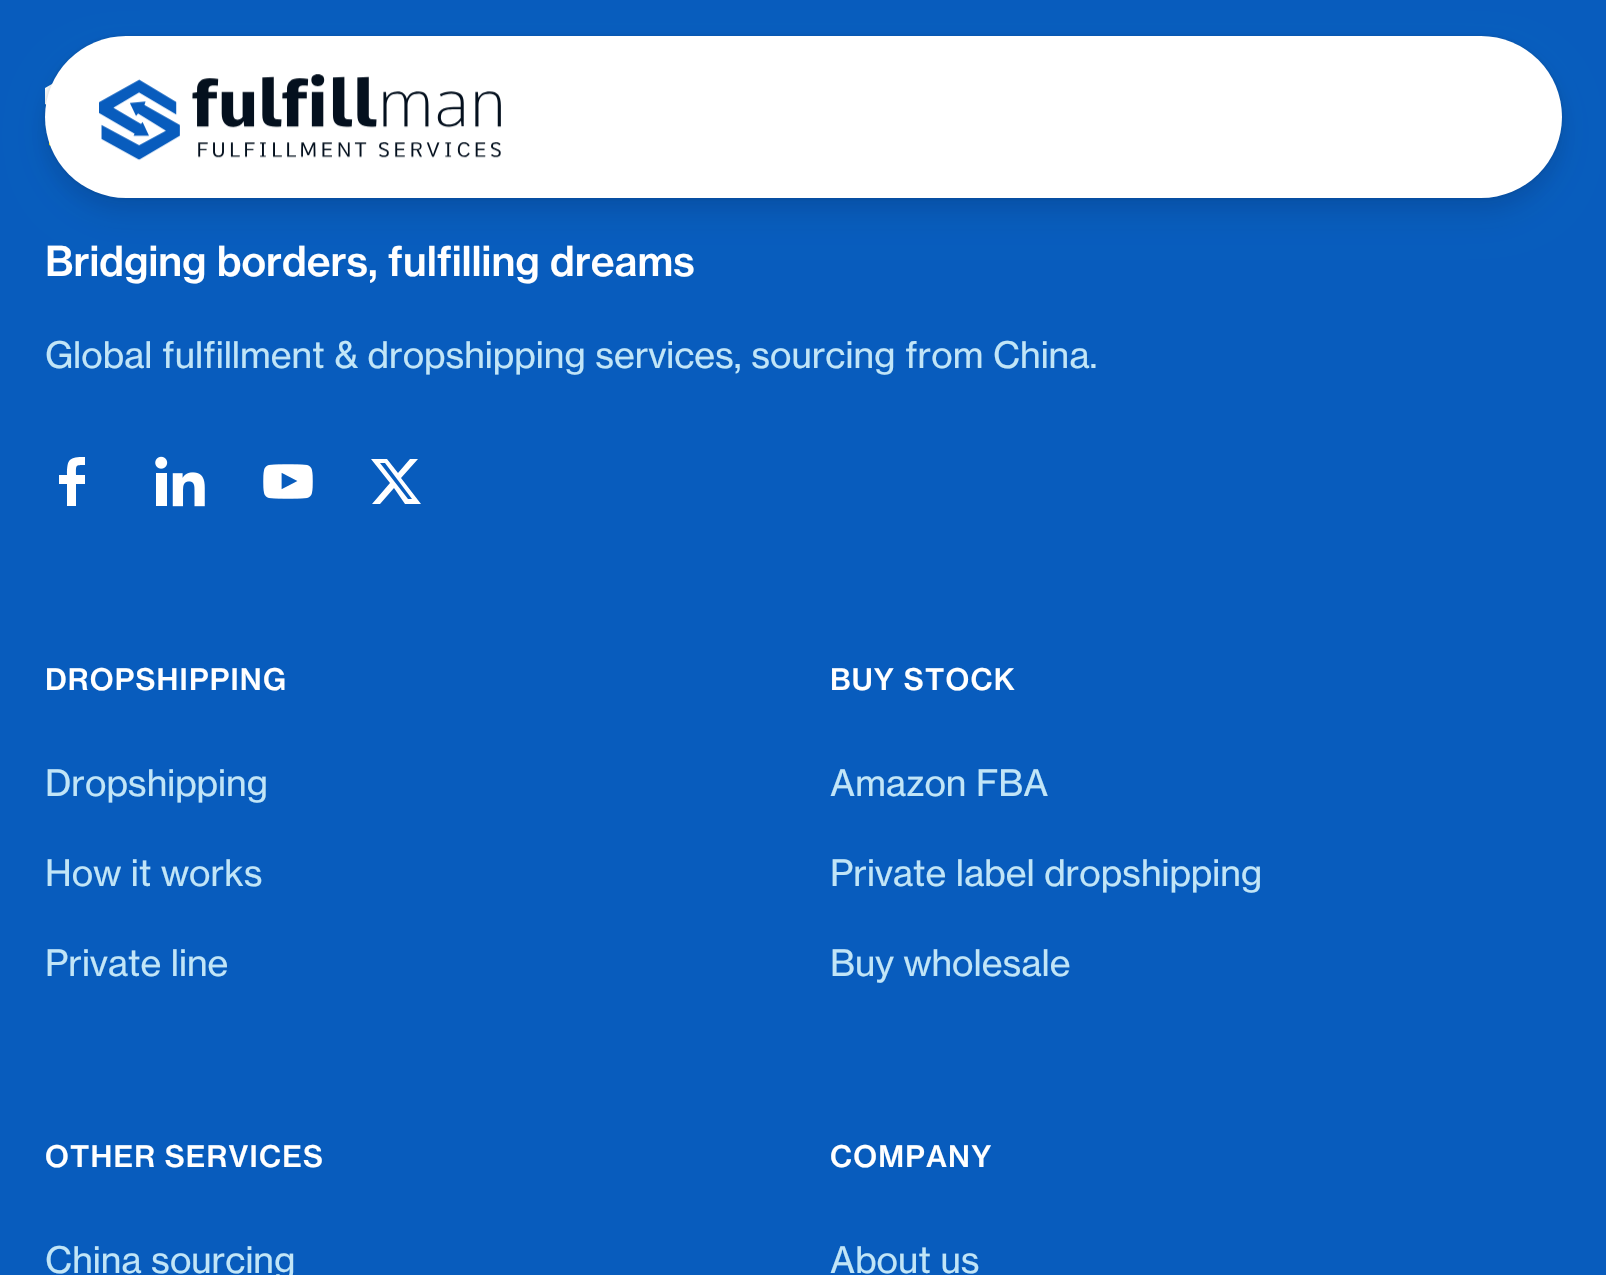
void draw(SkCanvas* canvas) {
	SkPaint paint;
	paint.setAntiAlias(true);
	auto spacedText = [&](const char* s, float x, float y, const SkFont& font, const SkPaint& ink, float letter, float word) {
		std::vector<SkGlyphID> glyphs(font.countText(s, strlen(s), SkTextEncoding::kUTF8));
		std::vector<float> xs(glyphs.size());
		font.textToGlyphs(s, strlen(s), SkTextEncoding::kUTF8, glyphs);
		font.getXPos(glyphs, xs, x);
		float extra = 0;
		for (size_t i = 0; i < glyphs.size(); i++) {
			xs[i] += extra;
			extra += letter + word * (glyphs[i] == font.unicharToGlyph(' '));
		}
		canvas->drawTextBlob(SkTextBlob::MakeFromPosHGlyphs(glyphs, xs, y, font), 0, 0, ink);
	};
	auto svgPath = [&](const char* data, bool evenOdd = false) {
		SkPath result = *SkParsePath::FromSVGString(data);
		if (evenOdd) result.setFillType(SkPathFillType::kEvenOdd);
		return result;
	};
	canvas->clear(0xff085cbd);
	paint.setColor(0xffffffff);
	canvas->drawPath(svgPath("M165 106V87L108 52L45 88V104L101 136L99 140H123L113 118L111 122L67 96L107 72Z"), paint);
	paint.setColor(0xffffee00);
	canvas->drawPath(svgPath("M103 109L93 89L118 86L116 92L171 123V140L108 177L49 145V123L108 155L149 132L106 105Z"), paint);
	paint.setColor(0x1f04101e);
	paint.setMaskFilter(SkMaskFilter::MakeBlur(kNormal_SkBlurStyle, 2));
	canvas->drawRoundRect(SkRect::MakeXYWH(45, 36, 1517, 162), 81, 81, paint);
	paint.setMaskFilter(nullptr);
	paint.setColor(0x1404101e);
	paint.setMaskFilter(SkMaskFilter::MakeBlur(kNormal_SkBlurStyle, 9));
	canvas->drawRoundRect(SkRect::MakeXYWH(45, 45, 1517, 162), 81, 81, paint);
	paint.setMaskFilter(nullptr);
	paint.setMaskFilter(SkMaskFilter::MakeBlur(kNormal_SkBlurStyle, 18));
	canvas->drawRoundRect(SkRect::MakeXYWH(45, 54, 1517, 162), 81, 81, paint);
	paint.setMaskFilter(nullptr);
	paint.setColor(0xffffffff);
	canvas->drawRoundRect(SkRect::MakeXYWH(45, 36, 1517, 162), 81, 81, paint);
	canvas->drawImageRect(SkImages::DeferredFromEncodedData(SkData::MakeFromFileName("img1.png")), SkRect::MakeXYWH(99, 74, 402, 87), SkSamplingOptions());
	SkFont f1(fontMgr->matchFamilyStyle("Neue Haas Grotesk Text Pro", SkFontStyle(500, SkFontStyle::kNormal_Width, SkFontStyle::kUpright_Slant)), 40.5);
	f1.setSubpixel(true);
	canvas->drawString("Bridging borders, fulfilling dreams", 45, 276, f1, paint);
	SkFont f2(fontMgr->matchFamilyStyle("Neue Haas Grotesk Text Pro", SkFontStyle::Normal()), 36);
	f2.setSubpixel(true);
	paint.setColor(0xffc1e5f7);
	canvas->drawString("Global fulfillment & dropshipping services, sourcing from China.", 45, 368, f2, paint);
	paint.setColor(0xffffffff);
	canvas->drawPath(svgPath("M85 465C75 465 76 465 76 475H85V484H76V506H67V484H59V475H67C67 459 69 457 85 457Z"), paint);
	canvas->drawImageRect(SkImages::DeferredFromEncodedData(SkData::MakeFromFileName("img2.png")), SkRect::MakeXYWH(155, 456, 50, 51), SkSamplingOptions());
	canvas->drawImageRect(SkImages::DeferredFromEncodedData(SkData::MakeFromFileName("img3.png")), SkRect::MakeXYWH(263, 464, 50, 35), SkSamplingOptions());
	canvas->drawPath(svgPath("M410 459H418L401 478L421 504H405L394 488L380 504H372L390 483L371 459H387L398 473ZM408 499H412L385 463H380Z"), paint);
	SkFont f3(fontMgr->matchFamilyStyle("Neue Haas Grotesk Text Pro", SkFontStyle(500, SkFontStyle::kNormal_Width, SkFontStyle::kUpright_Slant)), 29.25);
	f3.setSubpixel(true);
	spacedText("DROPSHIPPING", 45, 690, f3, paint, 1.2, 0);
	paint.setColor(0xffc1e5f7);
	canvas->drawString("Dropshipping", 45, 796, f2, paint);
	canvas->drawString("How it works", 45, 886, f2, paint);
	canvas->drawString("Private line", 45, 976, f2, paint);
	paint.setColor(0xffffffff);
	spacedText("BUY STOCK", 830, 690, f3, paint, 1.2, 0);
	paint.setColor(0xffc1e5f7);
	canvas->drawString("Amazon FBA", 830, 796, f2, paint);
	canvas->drawString("Private label dropshipping", 830, 886, f2, paint);
	canvas->drawString("Buy wholesale", 830, 976, f2, paint);
	paint.setColor(0xffffffff);
	spacedText("OTHER SERVICES", 45, 1167, f3, paint, 1.2, 0);
	paint.setColor(0xffc1e5f7);
	canvas->drawString("China sourcing", 45, 1273, f2, paint);
	paint.setColor(0xffffffff);
	spacedText("COMPANY", 830, 1167, f3, paint, 1.2, 0);
	paint.setColor(0xffc1e5f7);
	canvas->drawString("About us", 830, 1273, f2, paint);
}
